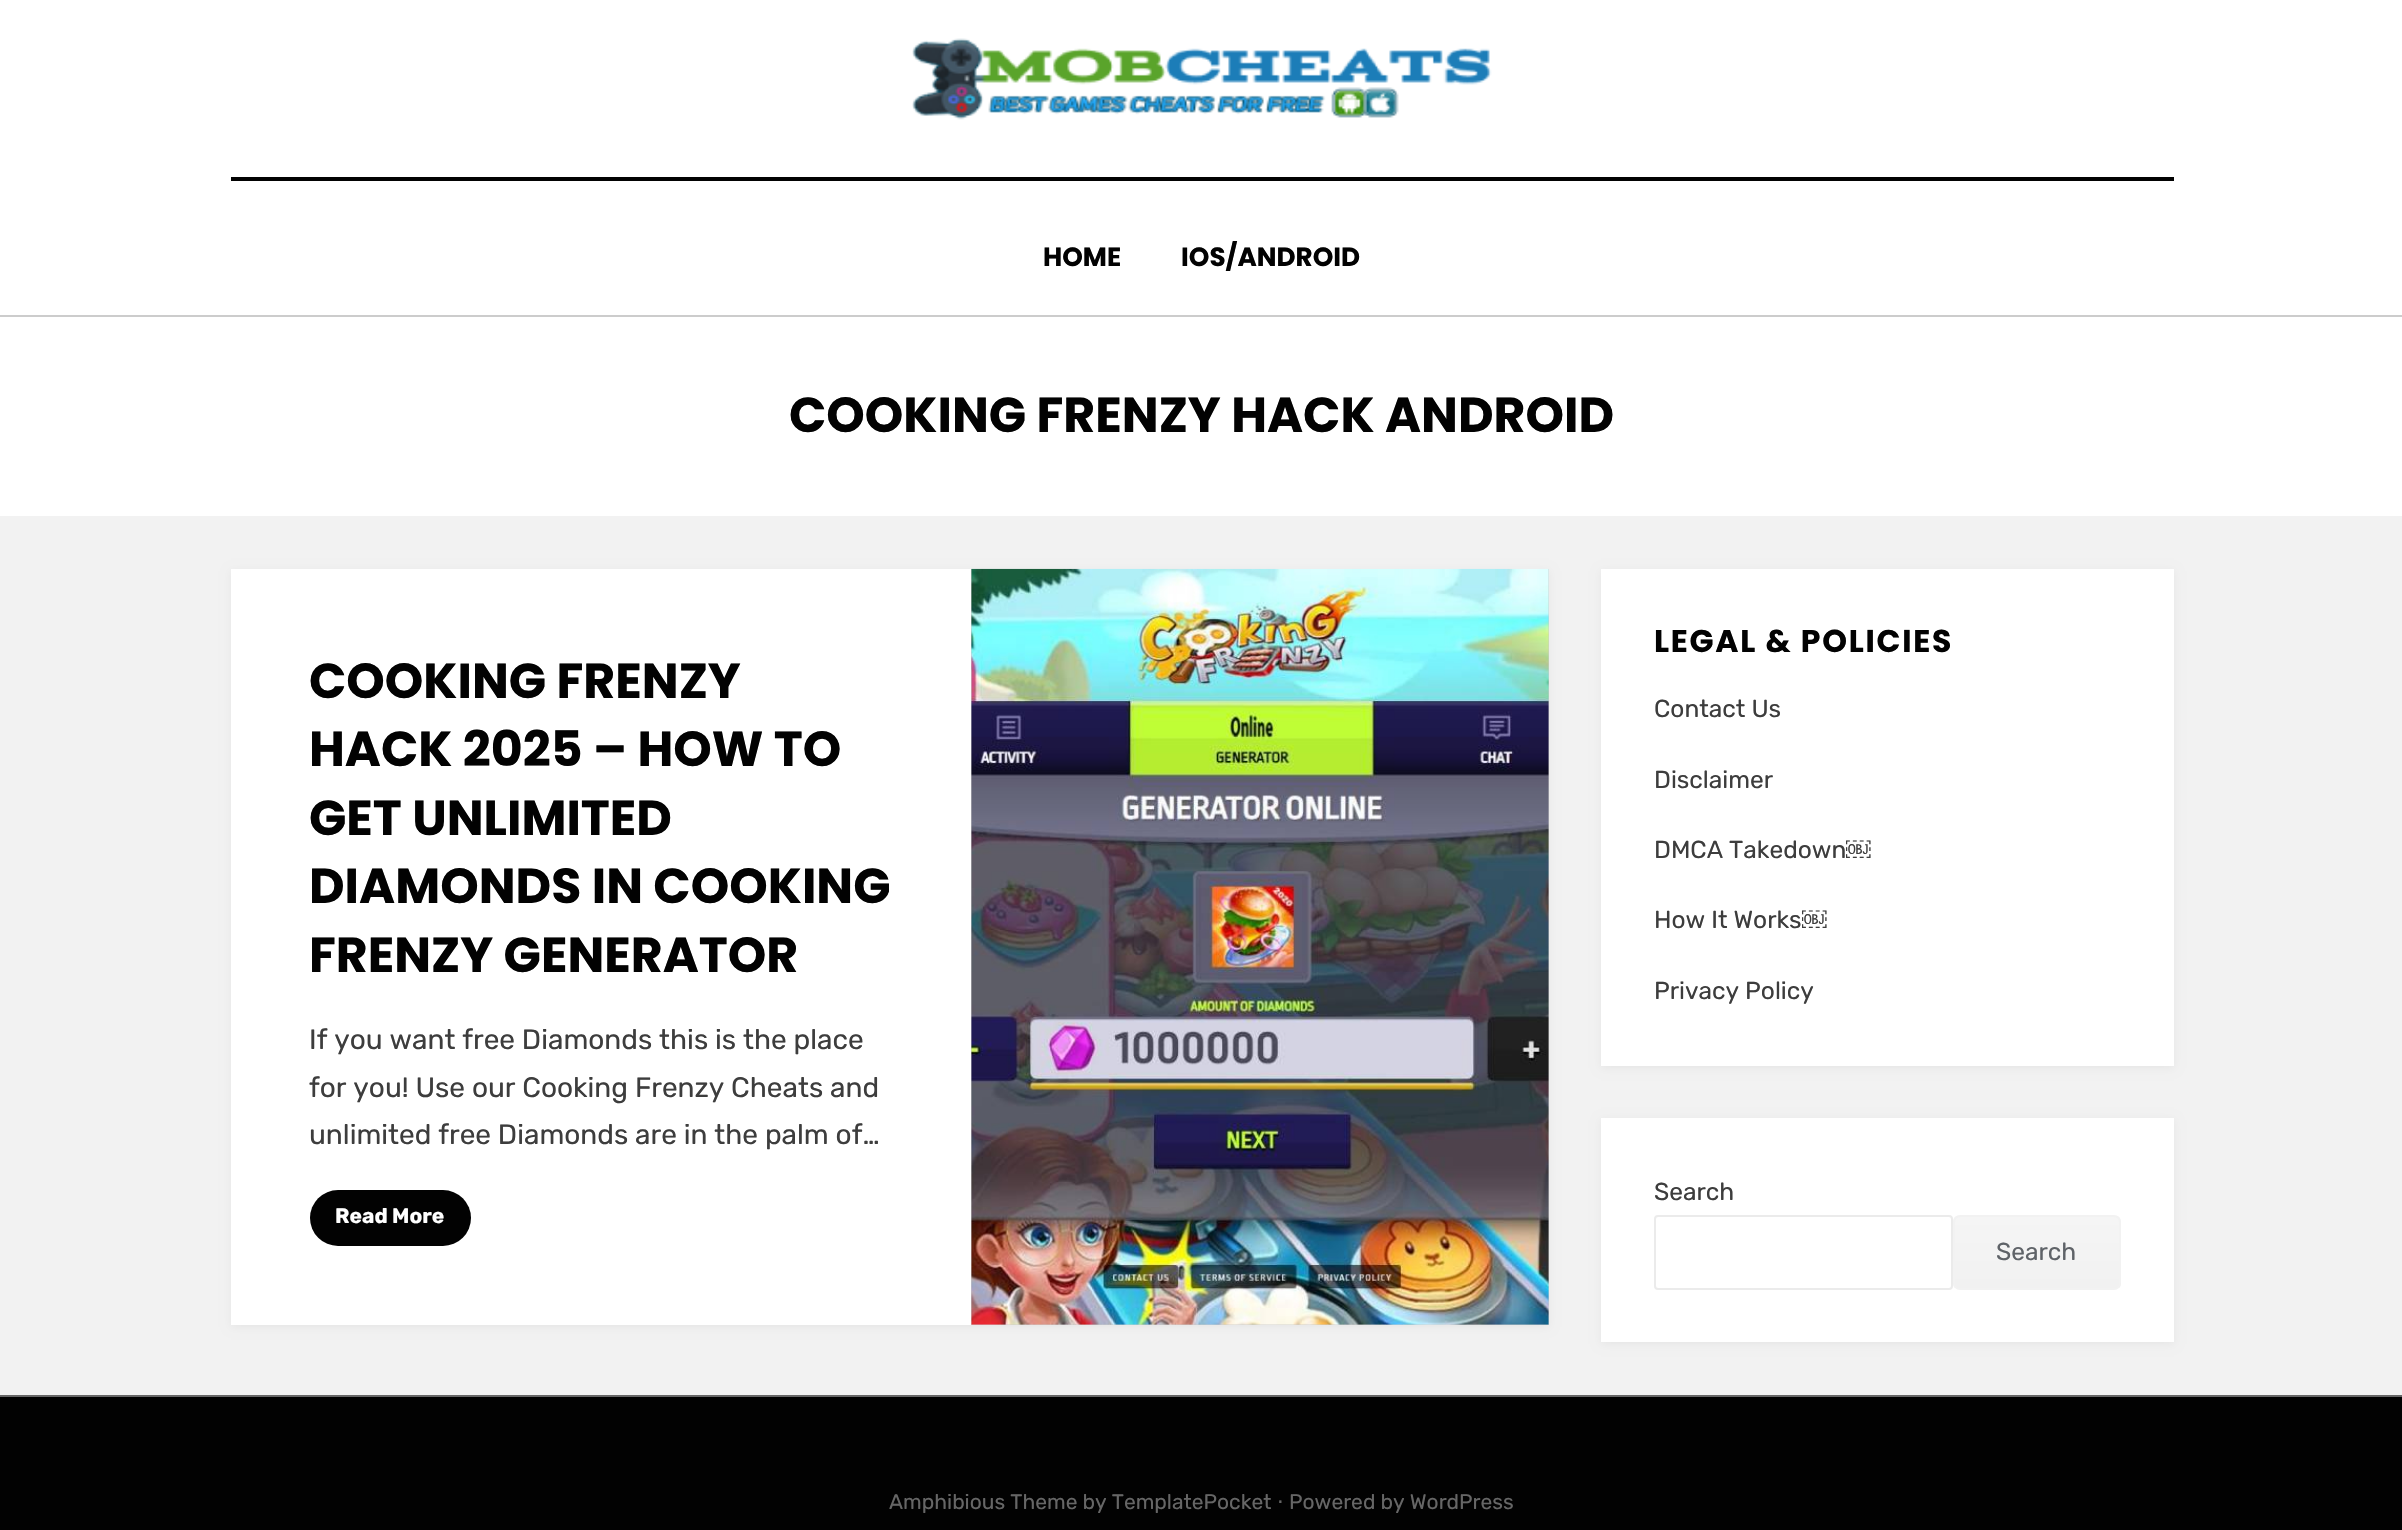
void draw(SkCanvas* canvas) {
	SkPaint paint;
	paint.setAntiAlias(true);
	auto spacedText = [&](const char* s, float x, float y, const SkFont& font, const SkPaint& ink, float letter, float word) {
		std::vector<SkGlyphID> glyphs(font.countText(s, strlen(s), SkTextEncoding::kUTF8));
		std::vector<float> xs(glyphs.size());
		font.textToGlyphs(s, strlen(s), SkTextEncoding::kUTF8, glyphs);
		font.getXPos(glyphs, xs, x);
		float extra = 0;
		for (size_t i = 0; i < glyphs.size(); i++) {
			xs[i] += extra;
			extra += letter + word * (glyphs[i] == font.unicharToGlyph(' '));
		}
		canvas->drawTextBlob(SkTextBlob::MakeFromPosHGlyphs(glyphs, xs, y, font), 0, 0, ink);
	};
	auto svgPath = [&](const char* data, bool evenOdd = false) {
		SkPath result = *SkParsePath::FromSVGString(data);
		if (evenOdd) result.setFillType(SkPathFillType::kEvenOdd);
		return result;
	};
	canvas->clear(0xfff2f2f2);
	paint.setColor(0xffffffff);
	canvas->drawRect(SkRect::MakeXYWH(0, 0, 2402, 315), paint);
	canvas->drawImageRect(SkImages::DeferredFromEncodedData(SkData::MakeFromFileName("img1.png")), SkRect::MakeXYWH(912, 38, 580, 82), SkSamplingOptions());
	paint.setColor(0xff020202);
	canvas->drawRect(SkRect::MakeXYWH(231, 177, 1943, 4), paint);
	SkFont f1(fontMgr->matchFamilyStyle("Poppins", SkFontStyle::Bold()), 26.25);
	f1.setSubpixel(true);
	canvas->drawString("HOME", 1043, 266, f1, paint);
	canvas->drawString("IOS/ANDROID", 1181, 266, f1, paint);
	paint.setColor(0xffffffff);
	canvas->drawRect(SkRect::MakeXYWH(0, 317, 2402, 199), paint);
	paint.setColor(0xffcccccc);
	canvas->drawRect(SkRect::MakeXYWH(0, 315, 2402, 2), paint);
	SkFont f2(fontMgr->matchFamilyStyle("Poppins", SkFontStyle::Bold()), 49);
	f2.setSubpixel(true);
	paint.setColor(0xff020202);
	canvas->drawString("COOKING FRENZY HACK ANDROID", 789, 432, f2, paint);
	paint.setColor(0x0d000001);
	paint.setMaskFilter(SkMaskFilter::MakeBlur(kNormal_SkBlurStyle, 4.5));
	canvas->drawRect(SkRect::MakeXYWH(231, 571, 1318, 756), paint);
	paint.setMaskFilter(nullptr);
	paint.setColor(0xffffffff);
	canvas->drawRect(SkRect::MakeXYWH(231, 569, 740, 756), paint);
	paint.setColor(0xff020202);
	canvas->drawString("COOKING FRENZY", 309, 698, f2, paint);
	canvas->drawString("HACK 2025 – HOW TO", 309, 766, f2, paint);
	canvas->drawString("GET UNLIMITED", 309, 835, f2, paint);
	canvas->drawString("DIAMONDS IN COOKING", 309, 903, f2, paint);
	canvas->drawString("FRENZY GENERATOR", 309, 972, f2, paint);
	SkFont f3(fontMgr->matchFamilyStyle("Rubik", SkFontStyle::Normal()), 28);
	f3.setSubpixel(true);
	paint.setColor(0xff3d3d3d);
	canvas->drawString("If you want free Diamonds this is the place", 309, 1049, f3, paint);
	canvas->drawString("for you! Use our Cooking Frenzy Cheats and", 309, 1097, f3, paint);
	canvas->drawString("unlimited free Diamonds are in the palm of…", 309, 1144, f3, paint);
	paint.setColor(0xff020202);
	canvas->drawRoundRect(SkRect::MakeXYWH(310, 1190, 161, 56), 28, 28, paint);
	SkFont f4(fontMgr->matchFamilyStyle("Rubik", SkFontStyle::Bold()), 21);
	f4.setSubpixel(true);
	paint.setColor(0xffffffff);
	canvas->drawString("Read More", 335, 1223, f4, paint);
	paint.setColor(0xffcccccc);
	canvas->drawRect(SkRect::MakeXYWH(971, 569, 578, 756), paint);
	canvas->drawImageRect(SkImages::DeferredFromEncodedData(SkData::MakeFromFileName("img2.png")), SkRect::MakeXYWH(971, 568, 578, 757), SkSamplingOptions());
	paint.setColor(0x0d000001);
	paint.setMaskFilter(SkMaskFilter::MakeBlur(kNormal_SkBlurStyle, 4.5));
	canvas->drawRect(SkRect::MakeXYWH(1601, 571, 573, 497), paint);
	paint.setMaskFilter(nullptr);
	paint.setColor(0xffffffff);
	canvas->drawRect(SkRect::MakeXYWH(1601, 569, 573, 497), paint);
	SkFont f5(fontMgr->matchFamilyStyle("Poppins", SkFontStyle::Bold()), 31.5);
	f5.setSubpixel(true);
	paint.setColor(0xff020202);
	spacedText("LEGAL & POLICIES", 1654, 652, f5, paint, 1.75, 0);
	SkFont f6(fontMgr->matchFamilyStyle("Rubik", SkFontStyle::Normal()), 24.5);
	f6.setSubpixel(true);
	paint.setColor(0xff3d3d3d);
	canvas->drawString("Contact Us", 1654, 717, f6, paint);
	canvas->drawString("Disclaimer", 1654, 788, f6, paint);
	canvas->drawString("DMCA Takedown", 1654, 858, f6, paint);
	SkFont f7(fontMgr->matchFamilyStyle("Liberation Sans", SkFontStyle::Normal()), 24.5);
	f7.setSubpixel(true);
	canvas->drawString("￼", 1846, 858, f7, paint);
	canvas->drawString("How It Works", 1654, 928, f6, paint);
	canvas->drawString("￼", 1802, 928, f7, paint);
	canvas->drawString("Privacy Policy", 1654, 999, f6, paint);
	paint.setColor(0x0d000001);
	paint.setMaskFilter(SkMaskFilter::MakeBlur(kNormal_SkBlurStyle, 4.5));
	canvas->drawRect(SkRect::MakeXYWH(1601, 1120, 573, 224), paint);
	paint.setMaskFilter(nullptr);
	paint.setColor(0xffffffff);
	canvas->drawRect(SkRect::MakeXYWH(1601, 1118, 573, 224), paint);
	paint.setColor(0xff3d3d3d);
	canvas->drawString("Search", 1654, 1200, f6, paint);
	paint.setStroke(true);
	paint.setStrokeWidth(2);
	paint.setColor(0xffebebeb);
	canvas->drawRoundRect(SkRect::MakeXYWH(1655, 1216, 297, 73), 3, 3, paint);
	canvas->save();
	canvas->clipPath(svgPath("M1960 1215H2114C2118 1215 2121 1218 2121 1222V1283C2121 1287 2118 1290 2114 1290H1960C1956 1290 1953 1287 1953 1283V1222C1953 1218 1956 1215 1960 1215Z"), true);
	paint.setStroke(false);
	{
		const SkColor colors[] = {0xfff5f5f5, 0xfff1f1f1};
		const float stops[] = {0, 1};
		const SkPoint ends[] = {{2037, 1216}, {2037, 1288}};
		paint.setShader(SkGradientShader::MakeLinear(ends, colors, stops, 2, SkTileMode::kClamp));
		paint.setAlpha(255);
	}
	canvas->drawRect(SkRect::MakeXYWH(1953, 1216, 168, 72), paint);
	canvas->restore();
	paint.setStroke(true);
	paint.setShader(nullptr);
	paint.setColor(0xfff2f2f2);
	canvas->drawRoundRect(SkRect::MakeXYWH(1954, 1216, 166, 73), 6, 6, paint);
	paint.setStroke(false);
	paint.setColor(0xff5f6368);
	canvas->drawString("Search", 1996, 1260, f6, paint);
	paint.setColor(0xff020202);
	canvas->drawRect(SkRect::MakeXYWH(0, 1397, 2402, 133), paint);
	paint.setColor(0xff666666);
	canvas->drawRect(SkRect::MakeXYWH(0, 1395, 2402, 2), paint);
	SkFont f8(fontMgr->matchFamilyStyle("Rubik", SkFontStyle::Normal()), 21);
	f8.setSubpixel(true);
	canvas->drawString("Amphibious Theme by TemplatePocket", 889, 1509, f8, paint);
	SkFont f9(fontMgr->matchFamilyStyle("DejaVu Sans", SkFontStyle::Normal()), 21);
	f9.setSubpixel(true);
	canvas->drawString("⋅", 1277, 1509, f9, paint);
	canvas->drawString("Powered by WordPress", 1289, 1509, f8, paint);
}
